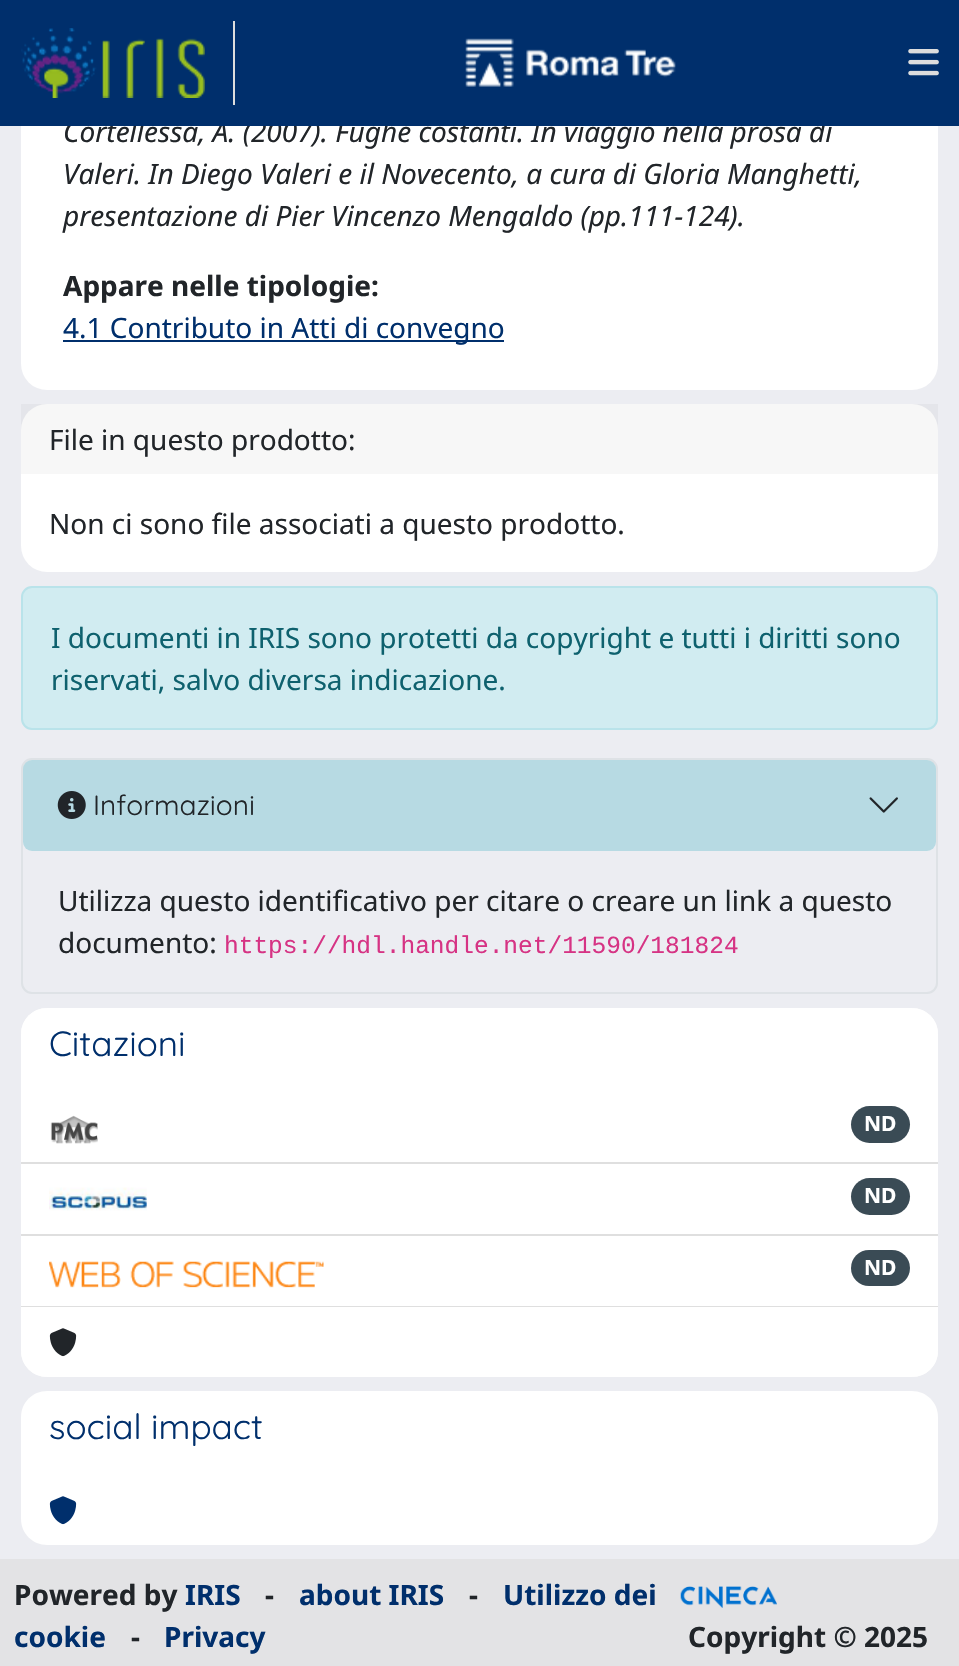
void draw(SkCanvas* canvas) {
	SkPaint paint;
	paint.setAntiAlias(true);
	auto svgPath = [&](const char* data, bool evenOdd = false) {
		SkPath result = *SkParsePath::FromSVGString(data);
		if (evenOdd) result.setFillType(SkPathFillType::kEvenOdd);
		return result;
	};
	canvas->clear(0xffecedf2);
	paint.setColor(0xffffffff);
	canvas->drawRoundRect(SkRect::MakeXYWH(21, -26, 917, 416), 26, 26, paint);
	SkFont f1(fontMgr->matchFamilyStyle("Noto Sans", SkFontStyle::Italic()), 28);
	f1.setSubpixel(true);
	paint.setColor(0xff212529);
	canvas->drawString("Cortellessa, A. (2007). Fughe costanti. In viaggio nella prosa di", 63, 142, f1, paint);
	paint.setColor(0xff002f6c);
	canvas->drawRect(SkRect::MakeXYWH(0, 0, 959, 126), paint);
	paint.setColor(0xffdddddd);
	canvas->drawRect(SkRect::MakeXYWH(233, 21, 2, 84), paint);
	canvas->drawImageRect(SkImages::DeferredFromEncodedData(SkData::MakeFromFileName("img1.png")), SkRect::MakeXYWH(21, 28, 184, 70), SkSamplingOptions());
	canvas->drawImageRect(SkImages::DeferredFromEncodedData(SkData::MakeFromFileName("img2.png")), SkRect::MakeXYWH(465, 38, 211, 49), SkSamplingOptions());
	canvas->drawImageRect(SkImages::DeferredFromEncodedData(SkData::MakeFromFileName("img3.png")), SkRect::MakeXYWH(908, 49, 31, 27), SkSamplingOptions());
	paint.setColor(0xff212529);
	canvas->drawString("Valeri. In Diego Valeri e il Novecento, a cura di Gloria Manghetti,", 63, 184, f1, paint);
	canvas->drawString("presentazione di Pier Vincenzo Mengaldo (pp.111-124).", 63, 226, f1, paint);
	SkFont f2(fontMgr->matchFamilyStyle("Noto Sans", SkFontStyle::Bold()), 28);
	f2.setSubpixel(true);
	canvas->drawString("Appare nelle tipologie:", 63, 296, f2, paint);
	paint.setColor(0xff002f6c);
	canvas->drawRect(SkRect::MakeXYWH(63, 340, 441, 2), paint);
	SkFont f3(fontMgr->matchFamilyStyle("Noto Sans", SkFontStyle::Normal()), 28);
	f3.setSubpixel(true);
	canvas->drawString("4.1 Contributo in Atti di convegno", 63, 338, f3, paint);
	paint.setColor(0xffffffff);
	canvas->drawRoundRect(SkRect::MakeXYWH(21, 404, 917, 168), 26, 26, paint);
	paint.setColor(0x08000000);
	canvas->drawRect(SkRect::MakeXYWH(21, 404, 917, 70), paint);
	paint.setColor(0xff212529);
	canvas->drawString("File in questo prodotto:", 49, 450, f3, paint);
	canvas->drawString("Non ci sono file associati a questo prodotto.", 49, 534, f3, paint);
	paint.setColor(0xffd1ecf1);
	canvas->drawRoundRect(SkRect::MakeXYWH(22, 587, 915, 142), 10, 10, paint);
	paint.setStroke(true);
	paint.setStrokeWidth(2);
	paint.setColor(0xffb9e3ea);
	canvas->drawRoundRect(SkRect::MakeXYWH(22, 587, 915, 142), 10, 10, paint);
	paint.setStroke(false);
	paint.setColor(0xff0e616e);
	canvas->drawString("I documenti in IRIS sono protetti da copyright e tutti i diritti sono", 51, 648, f3, paint);
	canvas->drawString("riservati, salvo diversa indicazione.", 51, 690, f3, paint);
	paint.setStroke(true);
	paint.setColor(0xffdee2e6);
	canvas->drawRoundRect(SkRect::MakeXYWH(22, 759, 915, 234), 10, 10, paint);
	paint.setStroke(false);
	paint.setColor(0x4017a2b8);
	canvas->drawRoundRect(SkRect::MakeXYWH(23, 760, 913, 91), 9, 9, paint);
	canvas->drawImageRect(SkImages::DeferredFromEncodedData(SkData::MakeFromFileName("img4.png")), SkRect::MakeXYWH(57, 791, 29, 28), SkSamplingOptions());
	SkFont f4(fontMgr->matchFamilyStyle("Quicksand", SkFontStyle(300, SkFontStyle::kNormal_Width, SkFontStyle::kUpright_Slant)), 28);
	f4.setSubpixel(true);
	paint.setColor(0xff212529);
	canvas->drawString("Informazioni", 93, 815, f4, paint);
	canvas->drawImageRect(SkImages::DeferredFromEncodedData(SkData::MakeFromFileName("img5.png")), SkRect::MakeXYWH(869, 797, 29, 16), SkSamplingOptions());
	canvas->drawString("Utilizza questo identificativo per citare o creare un link a questo", 58, 911, f3, paint);
	canvas->drawString("documento:", 58, 953, f3, paint);
	SkFont f5(fontMgr->matchFamilyStyle("Liberation Mono", SkFontStyle::Normal()), 24.5);
	f5.setSubpixel(true);
	paint.setColor(0xffd63384);
	canvas->drawString("https://hdl.handle.net/11590/181824", 224, 953, f5, paint);
	paint.setColor(0xffffffff);
	canvas->drawRoundRect(SkRect::MakeXYWH(21, 1008, 917, 369), 26, 26, paint);
	canvas->drawPath(svgPath("M47 1008H912C926.5 1008 938 1019.5 938 1034V1092H21V1034C21 1019.5 32.5 1008 47 1008Z"), paint);
	SkFont f6(fontMgr->matchFamilyStyle("Quicksand", SkFontStyle(300, SkFontStyle::kNormal_Width, SkFontStyle::kUpright_Slant)), 35);
	f6.setSubpixel(true);
	paint.setColor(0xff002f6c);
	canvas->drawString("Citazioni", 49, 1056, f6, paint);
	paint.setColor(0xffdfdfdf);
	canvas->drawRect(SkRect::MakeXYWH(21, 1162, 917, 2), paint);
	canvas->drawImageRect(SkImages::DeferredFromEncodedData(SkData::MakeFromFileName("img6.png")), SkRect::MakeXYWH(50, 1115, 48, 29), SkSamplingOptions());
	paint.setColor(0xff3a4b55);
	canvas->drawRoundRect(SkRect::MakeXYWH(851, 1106, 59, 37), 18.5, 18.5, paint);
	SkFont f7(fontMgr->matchFamilyStyle("Noto Sans", SkFontStyle::Bold()), 21);
	f7.setSubpixel(true);
	paint.setColor(0xffffffff);
	canvas->drawString("ND", 864, 1131, f7, paint);
	paint.setColor(0xffdfdfdf);
	canvas->drawRect(SkRect::MakeXYWH(21, 1234, 917, 2), paint);
	canvas->drawImageRect(SkImages::DeferredFromEncodedData(SkData::MakeFromFileName("img7.png")), SkRect::MakeXYWH(49, 1187, 98, 24), SkSamplingOptions());
	paint.setColor(0xff3a4b55);
	canvas->drawRoundRect(SkRect::MakeXYWH(851, 1178, 59, 37), 18.5, 18.5, paint);
	paint.setColor(0xffffffff);
	canvas->drawString("ND", 864, 1203, f7, paint);
	paint.setColor(0xffdfdfdf);
	canvas->drawRect(SkRect::MakeXYWH(21, 1306, 917, 1), paint);
	canvas->drawImageRect(SkImages::DeferredFromEncodedData(SkData::MakeFromFileName("img8.png")), SkRect::MakeXYWH(49, 1261, 275, 27), SkSamplingOptions());
	paint.setColor(0xff3a4b55);
	canvas->drawRoundRect(SkRect::MakeXYWH(851, 1250, 59, 36), 18, 18, paint);
	paint.setColor(0xffffffff);
	canvas->drawString("ND", 864, 1275, f7, paint);
	canvas->drawPath(svgPath("M21 1307H938V1351C938 1365.5 926.5 1377 912 1377H47C32.5 1377 21 1365.5 21 1351Z"), paint);
	canvas->drawImageRect(SkImages::DeferredFromEncodedData(SkData::MakeFromFileName("img9.png")), SkRect::MakeXYWH(49, 1328, 28, 29), SkSamplingOptions());
	canvas->drawPath(svgPath("M47 1391H912C926.5 1391 938 1402.5 938 1417V1475H21V1417C21 1402.5 32.5 1391 47 1391Z"), paint);
	paint.setColor(0xff002f6c);
	canvas->drawString("social impact", 49, 1439, f6, paint);
	paint.setColor(0xffffffff);
	canvas->drawPath(svgPath("M21 1475H938V1519C938 1533.5 926.5 1545 912 1545H47C32.5 1545 21 1533.5 21 1519Z"), paint);
	canvas->drawImageRect(SkImages::DeferredFromEncodedData(SkData::MakeFromFileName("img10.png")), SkRect::MakeXYWH(49, 1496, 28, 29), SkSamplingOptions());
	paint.setColor(0xffe3e3e5);
	canvas->drawRect(SkRect::MakeXYWH(0, 1559, 959, 107), paint);
	paint.setColor(0xff212529);
	canvas->drawString("Powered by", 14, 1605, f2, paint);
	paint.setColor(0xff002f6c);
	canvas->drawString("IRIS", 185, 1605, f2, paint);
	paint.setColor(0xff212529);
	canvas->drawString("-", 265, 1605, f2, paint);
	paint.setColor(0xff002f6c);
	canvas->drawString("about IRIS", 299, 1605, f2, paint);
	paint.setColor(0xff212529);
	canvas->drawString("-", 469, 1605, f2, paint);
	paint.setColor(0xff002f6c);
	canvas->drawString("Utilizzo dei", 503, 1605, f2, paint);
	canvas->drawString("cookie", 14, 1647, f2, paint);
	paint.setColor(0xff212529);
	canvas->drawString("-", 131, 1647, f2, paint);
	paint.setColor(0xff002f6c);
	canvas->drawString("Privacy", 164, 1647, f2, paint);
	canvas->drawImageRect(SkImages::DeferredFromEncodedData(SkData::MakeFromFileName("img11.png")), SkRect::MakeXYWH(680, 1586, 97, 22), SkSamplingOptions());
	paint.setColor(0xff212529);
	canvas->drawString("Copyright © 2025", 688, 1647, f2, paint);
}
